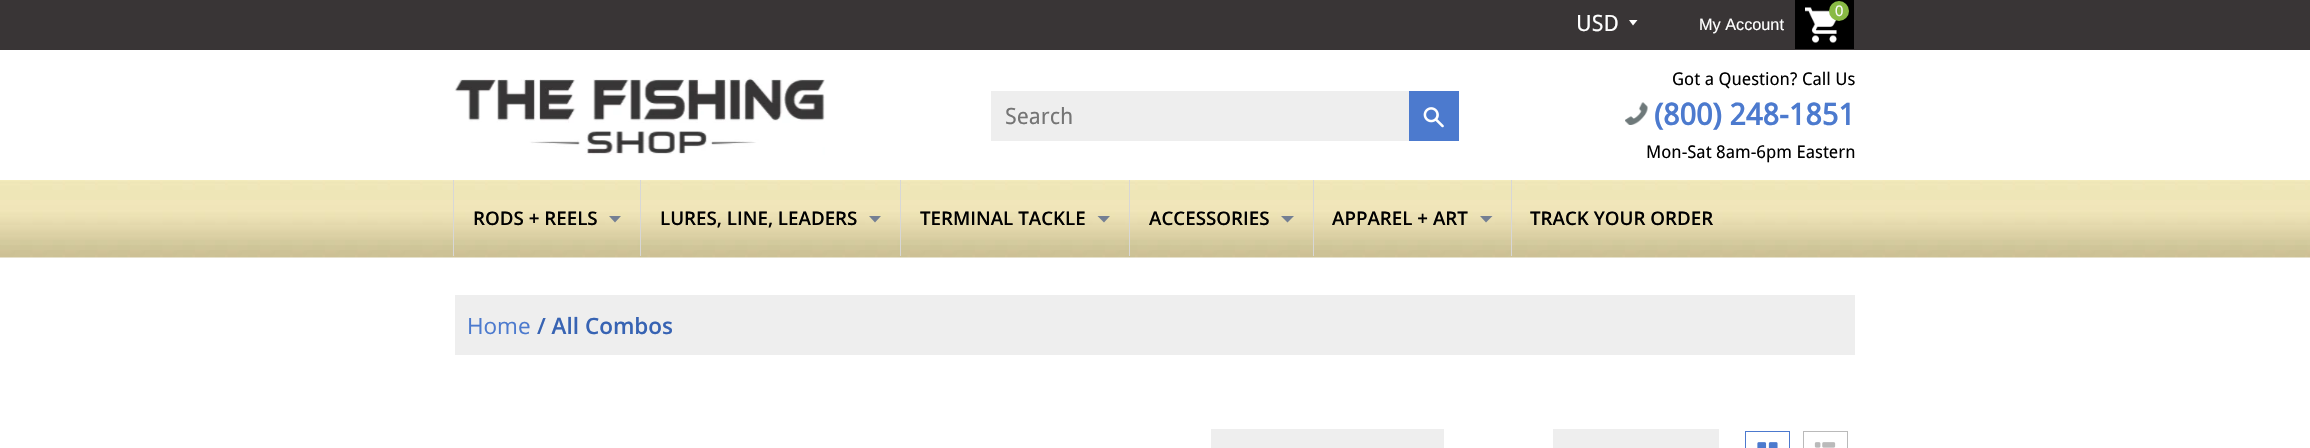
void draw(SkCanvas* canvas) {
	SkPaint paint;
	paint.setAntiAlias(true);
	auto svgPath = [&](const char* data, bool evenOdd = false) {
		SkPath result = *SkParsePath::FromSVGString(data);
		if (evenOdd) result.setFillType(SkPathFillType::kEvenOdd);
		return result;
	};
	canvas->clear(0xffffffff);
	paint.setColor(0xff393536);
	canvas->drawRect(SkRect::MakeXYWH(0, 0, 2310, 50), paint);
	paint.setColor(0xff000000);
	canvas->drawRect(SkRect::MakeXYWH(1795, 0, 59, 49), paint);
	canvas->drawImageRect(SkImages::DeferredFromEncodedData(SkData::MakeFromFileName("img1.png")), SkRect::MakeXYWH(1805, 7, 32, 36), SkSamplingOptions());
	paint.setColor(0xff89ba44);
	canvas->drawCircle(1839, 11, 10, paint);
	SkFont f1(fontMgr->matchFamilyStyle("Liberation Sans", SkFontStyle::Normal()), 15);
	f1.setSubpixel(true);
	paint.setColor(0xfff9f9f9);
	canvas->drawString("0", 1835, 16, f1, paint);
	paint.setColor(0xffffffff);
	canvas->drawPath(svgPath("M1629 20L1633 25.5L1637.5 20Z"), paint);
	SkFont f2(fontMgr->matchFamilyStyle("Droid Sans", SkFontStyle::Normal()), 22.5);
	f2.setSubpixel(true);
	canvas->drawString("USD", 1576, 31, f2, paint);
	SkFont f3(fontMgr->matchFamilyStyle("Liberation Sans", SkFontStyle::Normal()), 16.25);
	f3.setSubpixel(true);
	canvas->drawString("My Account", 1699, 30, f3, paint);
	canvas->drawImageRect(SkImages::DeferredFromEncodedData(SkData::MakeFromFileName("img2.png")), SkRect::MakeXYWH(454, 77, 371, 78), SkSamplingOptions());
	paint.setColor(0xffeeeeee);
	canvas->drawRect(SkRect::MakeXYWH(991, 91, 418, 50), paint);
	paint.setColor(0xff757575);
	canvas->drawString("Search", 1005, 124, f2, paint);
	paint.setColor(0xff4c7ace);
	canvas->drawRect(SkRect::MakeXYWH(1409, 91, 50, 50), paint);
	canvas->drawImageRect(SkImages::DeferredFromEncodedData(SkData::MakeFromFileName("img3.png")), SkRect::MakeXYWH(1423, 107, 21, 21), SkSamplingOptions());
	SkFont f4(fontMgr->matchFamilyStyle("Droid Sans", SkFontStyle::Normal()), 17.5);
	f4.setSubpixel(true);
	paint.setColor(0xff000000);
	canvas->drawString("Got a Question? Call Us", 1672, 85, f4, paint);
	canvas->drawImageRect(SkImages::DeferredFromEncodedData(SkData::MakeFromFileName("img4.png")), SkRect::MakeXYWH(1625, 102, 23, 23), SkSamplingOptions());
	SkFont f5(fontMgr->matchFamilyStyle("Droid Sans", SkFontStyle::Bold()), 30);
	f5.setSubpixel(true);
	paint.setColor(0xff4c7ace);
	canvas->drawString("(800) 248-1851", 1654, 125, f5, paint);
	paint.setColor(0xff000000);
	canvas->drawString("Mon-Sat 8am-6pm Eastern", 1646, 158, f4, paint);
	canvas->drawImageRect(SkImages::DeferredFromEncodedData(SkData::MakeFromFileName("img5.png")), SkRect::MakeXYWH(0, 180, 2310, 78), SkSamplingOptions());
	paint.setColor(0xffd7d7d7);
	canvas->drawRect(SkRect::MakeXYWH(640, 180, 1, 76), paint);
	canvas->drawRect(SkRect::MakeXYWH(453, 180, 1, 76), paint);
	SkFont f6(fontMgr->matchFamilyStyle("Open Sans", SkFontStyle(600, SkFontStyle::kNormal_Width, SkFontStyle::kUpright_Slant)), 18.75);
	f6.setSubpixel(true);
	paint.setColor(0xff000000);
	canvas->drawString("RODS + REELS", 473, 225, f6, paint);
	paint.setColor(0xff747f93);
	canvas->drawPath(svgPath("M609 216H621L615 222.5Z"), paint);
	paint.setColor(0xffd7d7d7);
	canvas->drawRect(SkRect::MakeXYWH(900, 180, 1, 76), paint);
	paint.setColor(0xff000000);
	canvas->drawString("LURES, LINE, LEADERS", 660, 225, f6, paint);
	paint.setColor(0xff747f93);
	canvas->drawPath(svgPath("M869 216H881L875 222.5Z"), paint);
	paint.setColor(0xffd7d7d7);
	canvas->drawRect(SkRect::MakeXYWH(1129, 180, 1, 76), paint);
	paint.setColor(0xff000000);
	canvas->drawString("TERMINAL TACKLE", 920, 225, f6, paint);
	paint.setColor(0xff747f93);
	canvas->drawPath(svgPath("M1097.5 216H1110L1104 222.5Z"), paint);
	paint.setColor(0xffd7d7d7);
	canvas->drawRect(SkRect::MakeXYWH(1313, 180, 1, 76), paint);
	paint.setColor(0xff000000);
	canvas->drawString("ACCESSORIES", 1149, 225, f6, paint);
	paint.setColor(0xff747f93);
	canvas->drawPath(svgPath("M1281 216H1294L1287.5 222.5Z"), paint);
	paint.setColor(0xffd7d7d7);
	canvas->drawRect(SkRect::MakeXYWH(1511, 180, 1, 76), paint);
	paint.setColor(0xff000000);
	canvas->drawString("APPAREL + ART", 1332, 225, f6, paint);
	paint.setColor(0xff747f93);
	canvas->drawPath(svgPath("M1480 216H1492.5L1486 222.5Z"), paint);
	paint.setColor(0xff000000);
	canvas->drawString("TRACK YOUR ORDER", 1530, 225, f6, paint);
	paint.setColor(0xffeeeeee);
	canvas->drawRect(SkRect::MakeXYWH(455, 295, 1400, 60), paint);
	SkFont f7(fontMgr->matchFamilyStyle("Open Sans", SkFontStyle::Normal()), 22.5);
	f7.setSubpixel(true);
	paint.setColor(0xff4c7ace);
	canvas->drawString("Home", 467, 334, f7, paint);
	SkFont f8(fontMgr->matchFamilyStyle("Open Sans", SkFontStyle(600, SkFontStyle::kNormal_Width, SkFontStyle::kUpright_Slant)), 22.5);
	f8.setSubpixel(true);
	paint.setColor(0xff3763b3);
	canvas->drawString("/ All Combos", 537, 334, f8, paint);
	paint.setColor(0xffeeeeee);
	canvas->drawRect(SkRect::MakeXYWH(1211, 429, 233, 19), paint);
	canvas->drawRect(SkRect::MakeXYWH(1553, 429, 166, 19), paint);
	paint.setStroke(true);
	paint.setStrokeWidth(1);
	paint.setColor(0xff4c79ce);
	canvas->drawRect(SkRect::MakeXYWH(1745.5, 431.5, 44, 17), paint);
	canvas->drawImageRect(SkImages::DeferredFromEncodedData(SkData::MakeFromFileName("img6.png")), SkRect::MakeXYWH(1757, 442, 21, 6), SkSamplingOptions());
	paint.setColor(0xffbababa);
	canvas->drawRect(SkRect::MakeXYWH(1803.5, 431.5, 44, 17), paint);
	canvas->drawImageRect(SkImages::DeferredFromEncodedData(SkData::MakeFromFileName("img7.png")), SkRect::MakeXYWH(1814, 442, 22, 6), SkSamplingOptions());
}
